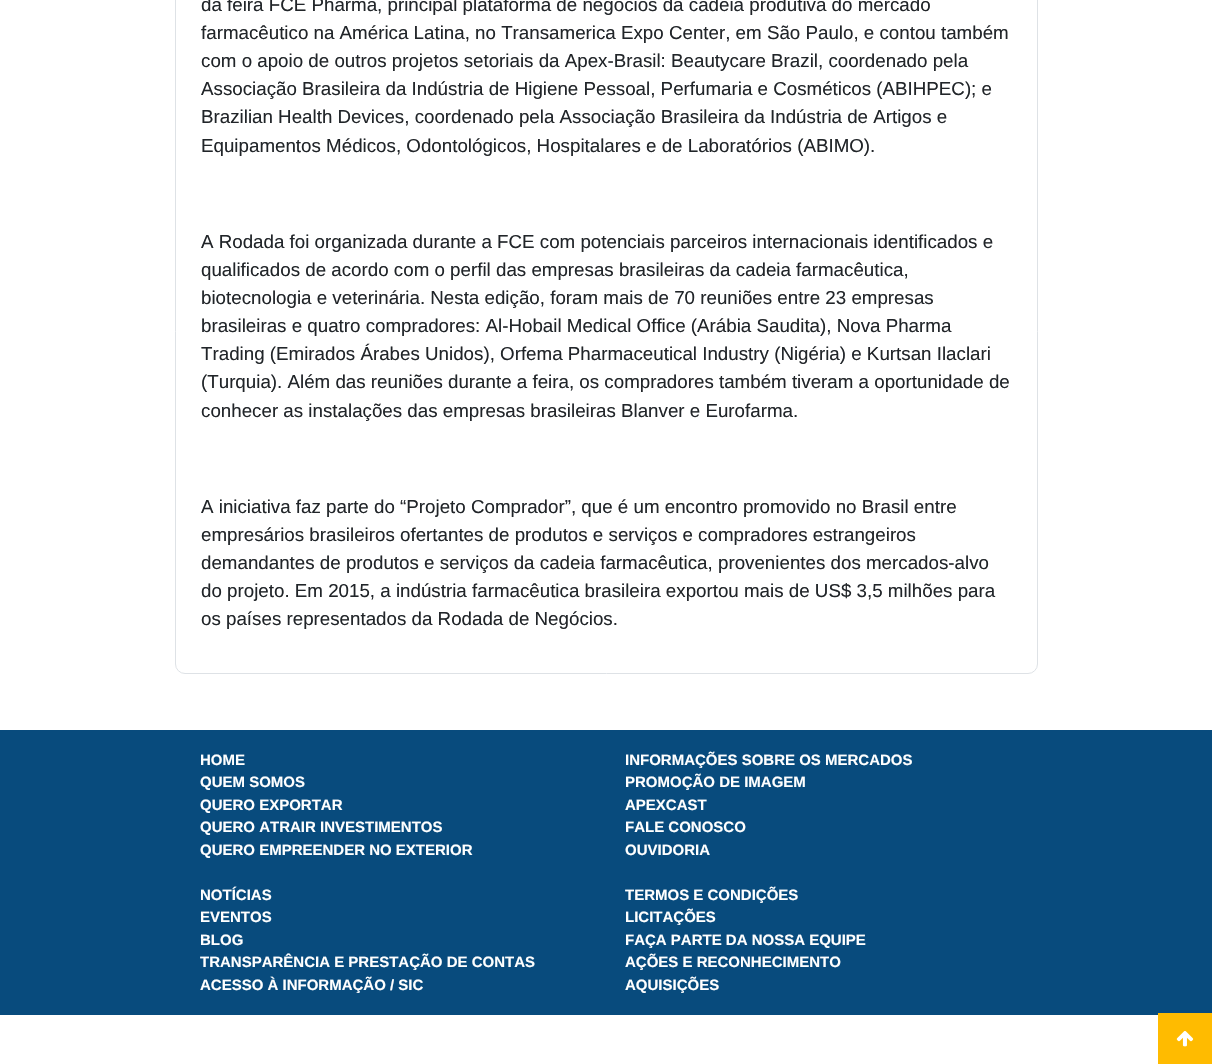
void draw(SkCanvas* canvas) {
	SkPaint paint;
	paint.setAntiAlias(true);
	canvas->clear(0xffffffff);
	paint.setStroke(true);
	paint.setStrokeWidth(1);
	paint.setColor(0xffdee2e6);
	canvas->drawRoundRect(SkRect::MakeXYWH(175.5, -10.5, 862, 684), 9.5, 9.5, paint);
	SkFont f1(fontMgr->matchFamilyStyle("Liberation Sans", SkFontStyle::Normal()), 18.75);
	f1.setSubpixel(true);
	paint.setStroke(false);
	paint.setColor(0xff212529);
	canvas->drawString("da feira FCE Pharma, principal plataforma de negócios da cadeia produtiva do mercado", 201, 11, f1, paint);
	canvas->drawString("farmacêutico na América Latina, no Transamerica Expo Center, em São Paulo, e contou também", 201, 39, f1, paint);
	canvas->drawString("com o apoio de outros projetos setoriais da Apex-Brasil: Beautycare Brazil, coordenado pela", 201, 67, f1, paint);
	canvas->drawString("Associação Brasileira da Indústria de Higiene Pessoal, Perfumaria e Cosméticos (ABIHPEC); e", 201, 95, f1, paint);
	canvas->drawString("Brazilian Health Devices, coordenado pela Associação Brasileira da Indústria de Artigos e", 201, 123, f1, paint);
	canvas->drawString("Equipamentos Médicos, Odontológicos, Hospitalares e de Laboratórios (ABIMO).", 201, 152, f1, paint);
	canvas->drawString("A Rodada foi organizada durante a FCE com potenciais parceiros internacionais identificados e", 201, 248, f1, paint);
	canvas->drawString("qualificados de acordo com o perfil das empresas brasileiras da cadeia farmacêutica,", 201, 276, f1, paint);
	canvas->drawString("biotecnologia e veterinária. Nesta edição, foram mais de 70 reuniões entre 23 empresas", 201, 304, f1, paint);
	canvas->drawString("brasileiras e quatro compradores: Al-Hobail Medical Office (Arábia Saudita), Nova Pharma", 201, 332, f1, paint);
	canvas->drawString("Trading (Emirados Árabes Unidos), Orfema Pharmaceutical Industry (Nigéria) e Kurtsan Ilaclari", 201, 360, f1, paint);
	canvas->drawString("(Turquia). Além das reuniões durante a feira, os compradores também tiveram a oportunidade de", 201, 388, f1, paint);
	canvas->drawString("conhecer as instalações das empresas brasileiras Blanver e Eurofarma.", 201, 417, f1, paint);
	canvas->drawString("A iniciativa faz parte do “Projeto Comprador”, que é um encontro promovido no Brasil entre", 201, 513, f1, paint);
	canvas->drawString("empresários brasileiros ofertantes de produtos e serviços e compradores estrangeiros", 201, 541, f1, paint);
	canvas->drawString("demandantes de produtos e serviços da cadeia farmacêutica, provenientes dos mercados-alvo", 201, 569, f1, paint);
	canvas->drawString("do projeto. Em 2015, a indústria farmacêutica brasileira exportou mais de US$ 3,5 milhões para", 201, 597, f1, paint);
	canvas->drawString("os países representados da Rodada de Negócios.", 201, 625, f1, paint);
	paint.setColor(0xff084b7d);
	canvas->drawRect(SkRect::MakeXYWH(0, 730, 1212, 285), paint);
	SkFont f2(fontMgr->matchFamilyStyle("Liberation Sans", SkFontStyle::Bold()), 15);
	f2.setSubpixel(true);
	paint.setColor(0xffffffff);
	canvas->drawString("HOME", 200, 765, f2, paint);
	canvas->drawString("QUEM SOMOS", 200, 787, f2, paint);
	canvas->drawString("QUERO EXPORTAR", 200, 810, f2, paint);
	canvas->drawString("QUERO ATRAIR INVESTIMENTOS", 200, 832, f2, paint);
	canvas->drawString("QUERO EMPREENDER NO EXTERIOR", 200, 855, f2, paint);
	canvas->drawString("INFORMAÇÕES SOBRE OS MERCADOS", 625, 765, f2, paint);
	canvas->drawString("PROMOÇÃO DE IMAGEM", 625, 787, f2, paint);
	canvas->drawString("APEXCAST", 625, 810, f2, paint);
	canvas->drawString("FALE CONOSCO", 625, 832, f2, paint);
	canvas->drawString("OUVIDORIA", 625, 855, f2, paint);
	canvas->drawString("NOTÍCIAS", 200, 900, f2, paint);
	canvas->drawString("EVENTOS", 200, 922, f2, paint);
	canvas->drawString("BLOG", 200, 945, f2, paint);
	canvas->drawString("TRANSPARÊNCIA E PRESTAÇÃO DE CONTAS", 200, 967, f2, paint);
	canvas->drawString("ACESSO À INFORMAÇÃO / SIC", 200, 990, f2, paint);
	canvas->drawString("TERMOS E CONDIÇÕES", 625, 900, f2, paint);
	canvas->drawString("LICITAÇÕES", 625, 922, f2, paint);
	canvas->drawString("FAÇA PARTE DA NOSSA EQUIPE", 625, 945, f2, paint);
	canvas->drawString("AÇÕES E RECONHECIMENTO", 625, 967, f2, paint);
	canvas->drawString("AQUISIÇÕES", 625, 990, f2, paint);
	paint.setColor(0xffffbb00);
	canvas->drawRect(SkRect::MakeXYWH(1158, 1013, 54, 51), paint);
	canvas->drawImageRect(SkImages::DeferredFromEncodedData(SkData::MakeFromFileName("img1.png")), SkRect::MakeXYWH(1176, 1031, 18, 16), SkSamplingOptions());
}
